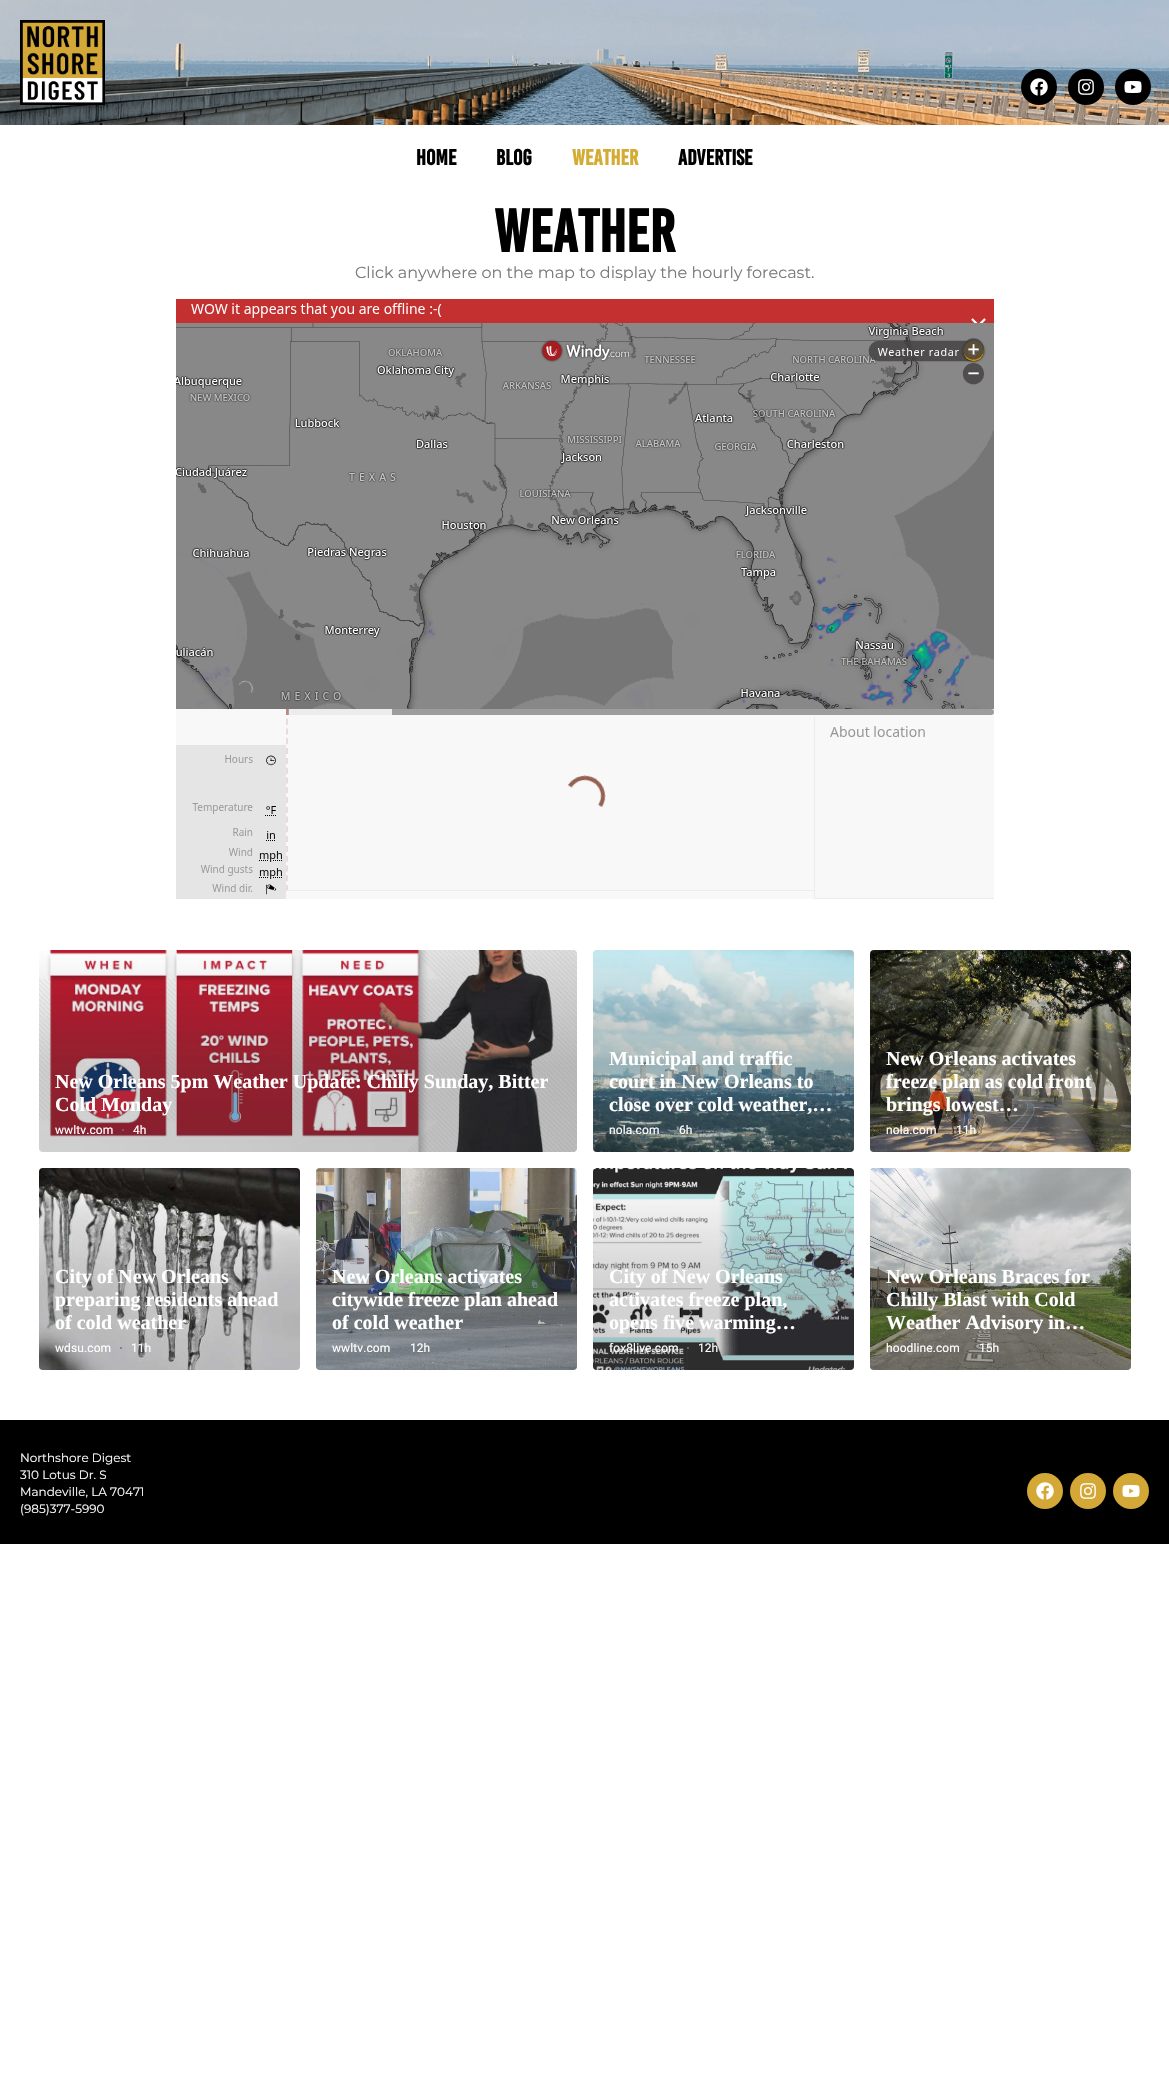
void draw(SkCanvas* canvas) {
	SkPaint paint;
	paint.setAntiAlias(true);
	auto spacedText = [&](const char* s, float x, float y, const SkFont& font, const SkPaint& ink, float letter, float word) {
		std::vector<SkGlyphID> glyphs(font.countText(s, strlen(s), SkTextEncoding::kUTF8));
		std::vector<float> xs(glyphs.size());
		font.textToGlyphs(s, strlen(s), SkTextEncoding::kUTF8, glyphs);
		font.getXPos(glyphs, xs, x);
		float extra = 0;
		for (size_t i = 0; i < glyphs.size(); i++) {
			xs[i] += extra;
			extra += letter + word * (glyphs[i] == font.unicharToGlyph(' '));
		}
		canvas->drawTextBlob(SkTextBlob::MakeFromPosHGlyphs(glyphs, xs, y, font), 0, 0, ink);
	};
	canvas->clear(0xffffffff);
	canvas->drawImageRect(SkImages::DeferredFromEncodedData(SkData::MakeFromFileName("img1.png")), SkRect::MakeXYWH(0, 0, 1169, 125), SkSamplingOptions());
	canvas->drawImageRect(SkImages::DeferredFromEncodedData(SkData::MakeFromFileName("img2.png")), SkRect::MakeXYWH(20, 20, 85, 85), SkSamplingOptions());
	paint.setColor(0xff000000);
	canvas->drawCircle(1039, 87, 18, paint);
	canvas->drawImageRect(SkImages::DeferredFromEncodedData(SkData::MakeFromFileName("img3.png")), SkRect::MakeXYWH(1030, 78, 18, 18), SkSamplingOptions());
	canvas->drawCircle(1086, 87, 18, paint);
	canvas->drawImageRect(SkImages::DeferredFromEncodedData(SkData::MakeFromFileName("img4.png")), SkRect::MakeXYWH(1078, 79, 16, 16), SkSamplingOptions());
	canvas->drawCircle(1133, 87, 18, paint);
	canvas->drawImageRect(SkImages::DeferredFromEncodedData(SkData::MakeFromFileName("img5.png")), SkRect::MakeXYWH(1124, 81, 18, 12), SkSamplingOptions());
	SkFont f1(fontMgr->matchFamilyStyle("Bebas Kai", SkFontStyle::Bold()), 22);
	f1.setSubpixel(true);
	canvas->drawString("HOME", 416, 165, f1, paint);
	canvas->drawString("BLOG", 496, 165, f1, paint);
	paint.setColor(0xffd4ac34);
	canvas->drawString("WEATHER", 572, 165, f1, paint);
	paint.setColor(0xff000000);
	canvas->drawString("ADVERTISE", 678, 165, f1, paint);
	SkFont f2(fontMgr->matchFamilyStyle("Bebas Kai", SkFontStyle::Bold()), 60);
	f2.setSubpixel(true);
	canvas->drawString("WEATHER", 494, 252, f2, paint);
	SkFont f3(fontMgr->matchFamilyStyle("Montserrat", SkFontStyle::Normal()), 16);
	f3.setSubpixel(true);
	paint.setColor(0xff7a7a7a);
	canvas->drawString("Click anywhere on the map to display the hourly forecast.", 355, 278, f3, paint);
	canvas->drawImageRect(SkImages::DeferredFromEncodedData(SkData::MakeFromFileName("img6.png")), SkRect::MakeXYWH(176, 299, 818, 600), SkSamplingOptions());
	canvas->drawImageRect(SkImages::DeferredFromEncodedData(SkData::MakeFromFileName("img7.png")), SkRect::MakeXYWH(39, 950, 538, 202), SkSamplingOptions());
	{
		const SkColor colors[] = {0x00424242, 0x3d424242, 0x3d424242};
		const float stops[] = {0, 0.58, 1};
		const SkPoint ends[] = {{308, 950}, {308, 1152}};
		paint.setShader(SkGradientShader::MakeLinear(ends, colors, stops, 3, SkTileMode::kClamp));
		paint.setAlpha(255);
	}
	canvas->drawRoundRect(SkRect::MakeXYWH(39, 950, 538, 202), 4, 4, paint);
	SkFont f4(fontMgr->matchFamilyStyle("Liberation Serif", SkFontStyle::Bold()), 20);
	f4.setSubpixel(true);
	paint.setShader(nullptr);
	paint.setColor(0xffffffff);
	canvas->drawString("New Orleans 5pm Weather Update: Chilly Sunday, Bitter", 55, 1088, f4, paint);
	canvas->drawString("Cold Monday", 55, 1111, f4, paint);
	SkFont f5(fontMgr->matchFamilyStyle("Roboto", SkFontStyle::Normal()), 12);
	f5.setSubpixel(true);
	spacedText("wwltv.com", 55, 1134, f5, paint, 0.1, 0);
	paint.setColor(0xff747474);
	canvas->drawCircle(123, 1130, 1, paint);
	paint.setColor(0xffffffff);
	canvas->drawString("4h", 133, 1134, f5, paint);
	canvas->drawImageRect(SkImages::DeferredFromEncodedData(SkData::MakeFromFileName("img8.png")), SkRect::MakeXYWH(593, 950, 261, 202), SkSamplingOptions());
	{
		const SkColor colors[] = {0x00424242, 0x3d424242, 0x3d424242};
		const float stops[] = {0, 0.58, 1};
		const SkPoint ends[] = {{724, 950}, {724, 1152}};
		paint.setShader(SkGradientShader::MakeLinear(ends, colors, stops, 3, SkTileMode::kClamp));
		paint.setAlpha(255);
	}
	canvas->drawRoundRect(SkRect::MakeXYWH(593, 950, 261, 202), 4, 4, paint);
	paint.setShader(nullptr);
	paint.setColor(0xffffffff);
	canvas->drawString("Municipal and traffic", 609, 1065, f4, paint);
	canvas->drawString("court in New Orleans to", 609, 1088, f4, paint);
	canvas->drawString("close over cold weather,…", 609, 1111, f4, paint);
	spacedText("nola.com", 609, 1134, f5, paint, 0.1, 0);
	paint.setColor(0xff747474);
	canvas->drawCircle(669, 1130, 1, paint);
	paint.setColor(0xffffffff);
	canvas->drawString("6h", 679, 1134, f5, paint);
	canvas->drawImageRect(SkImages::DeferredFromEncodedData(SkData::MakeFromFileName("img9.png")), SkRect::MakeXYWH(870, 950, 261, 202), SkSamplingOptions());
	{
		const SkColor colors[] = {0x00424242, 0x3d424242, 0x3d424242};
		const float stops[] = {0, 0.58, 1};
		const SkPoint ends[] = {{1001, 950}, {1001, 1152}};
		paint.setShader(SkGradientShader::MakeLinear(ends, colors, stops, 3, SkTileMode::kClamp));
		paint.setAlpha(255);
	}
	canvas->drawRoundRect(SkRect::MakeXYWH(870, 950, 261, 202), 4, 4, paint);
	paint.setShader(nullptr);
	paint.setColor(0xffffffff);
	canvas->drawString("New Orleans activates", 886, 1065, f4, paint);
	canvas->drawString("freeze plan as cold front", 886, 1088, f4, paint);
	canvas->drawString("brings lowest…", 886, 1111, f4, paint);
	spacedText("nola.com", 886, 1134, f5, paint, 0.1, 0);
	paint.setColor(0xff747474);
	canvas->drawCircle(946, 1130, 1, paint);
	paint.setColor(0xffffffff);
	canvas->drawString("11h", 956, 1134, f5, paint);
	canvas->drawImageRect(SkImages::DeferredFromEncodedData(SkData::MakeFromFileName("img10.png")), SkRect::MakeXYWH(39, 1168, 261, 202), SkSamplingOptions());
	{
		const SkColor colors[] = {0x00424242, 0x3d424242, 0x3d424242};
		const float stops[] = {0, 0.58, 1};
		const SkPoint ends[] = {{170, 1168}, {170, 1370}};
		paint.setShader(SkGradientShader::MakeLinear(ends, colors, stops, 3, SkTileMode::kClamp));
		paint.setAlpha(255);
	}
	canvas->drawRoundRect(SkRect::MakeXYWH(39, 1168, 261, 202), 4, 4, paint);
	paint.setShader(nullptr);
	paint.setColor(0xffffffff);
	canvas->drawString("City of New Orleans", 55, 1283, f4, paint);
	canvas->save();
	canvas->clipRect(SkRect::MakeXYWH(55, 1265, 229, 69));
	canvas->drawString("preparing residents ahead", 55, 1306, f4, paint);
	canvas->restore();
	canvas->drawString("of cold weather", 55, 1329, f4, paint);
	spacedText("wdsu.com", 55, 1352, f5, paint, 0.1, 0);
	paint.setColor(0xff747474);
	canvas->drawCircle(121, 1348, 1, paint);
	paint.setColor(0xffffffff);
	canvas->drawString("11h", 131, 1352, f5, paint);
	canvas->drawImageRect(SkImages::DeferredFromEncodedData(SkData::MakeFromFileName("img11.png")), SkRect::MakeXYWH(316, 1168, 261, 202), SkSamplingOptions());
	{
		const SkColor colors[] = {0x00424242, 0x3d424242, 0x3d424242};
		const float stops[] = {0, 0.58, 1};
		const SkPoint ends[] = {{447, 1168}, {447, 1370}};
		paint.setShader(SkGradientShader::MakeLinear(ends, colors, stops, 3, SkTileMode::kClamp));
		paint.setAlpha(255);
	}
	canvas->drawRoundRect(SkRect::MakeXYWH(316, 1168, 261, 202), 4, 4, paint);
	paint.setShader(nullptr);
	paint.setColor(0xffffffff);
	canvas->drawString("New Orleans activates", 332, 1283, f4, paint);
	canvas->drawString("citywide freeze plan ahead", 332, 1306, f4, paint);
	canvas->drawString("of cold weather", 332, 1329, f4, paint);
	spacedText("wwltv.com", 332, 1352, f5, paint, 0.1, 0);
	paint.setColor(0xff747474);
	canvas->drawCircle(400, 1348, 1, paint);
	paint.setColor(0xffffffff);
	canvas->drawString("12h", 410, 1352, f5, paint);
	canvas->drawImageRect(SkImages::DeferredFromEncodedData(SkData::MakeFromFileName("img12.png")), SkRect::MakeXYWH(593, 1168, 261, 202), SkSamplingOptions());
	{
		const SkColor colors[] = {0x00424242, 0x3d424242, 0x3d424242};
		const float stops[] = {0, 0.58, 1};
		const SkPoint ends[] = {{724, 1168}, {724, 1370}};
		paint.setShader(SkGradientShader::MakeLinear(ends, colors, stops, 3, SkTileMode::kClamp));
		paint.setAlpha(255);
	}
	canvas->drawRoundRect(SkRect::MakeXYWH(593, 1168, 261, 202), 4, 4, paint);
	paint.setShader(nullptr);
	paint.setColor(0xffffffff);
	canvas->drawString("City of New Orleans", 609, 1283, f4, paint);
	canvas->drawString("activates freeze plan,", 609, 1306, f4, paint);
	canvas->drawString("opens five warming…", 609, 1329, f4, paint);
	spacedText("fox8live.com", 609, 1352, f5, paint, 0.1, 0);
	paint.setColor(0xff747474);
	canvas->drawCircle(688, 1348, 1, paint);
	paint.setColor(0xffffffff);
	canvas->drawString("12h", 698, 1352, f5, paint);
	canvas->drawImageRect(SkImages::DeferredFromEncodedData(SkData::MakeFromFileName("img13.png")), SkRect::MakeXYWH(870, 1168, 261, 202), SkSamplingOptions());
	{
		const SkColor colors[] = {0x00424242, 0x3d424242, 0x3d424242};
		const float stops[] = {0, 0.58, 1};
		const SkPoint ends[] = {{1001, 1168}, {1001, 1370}};
		paint.setShader(SkGradientShader::MakeLinear(ends, colors, stops, 3, SkTileMode::kClamp));
		paint.setAlpha(255);
	}
	canvas->drawRoundRect(SkRect::MakeXYWH(870, 1168, 261, 202), 4, 4, paint);
	paint.setShader(nullptr);
	paint.setColor(0xffffffff);
	canvas->drawString("New Orleans Braces for", 886, 1283, f4, paint);
	canvas->drawString("Chilly Blast with Cold", 886, 1306, f4, paint);
	canvas->drawString("Weather Advisory in…", 886, 1329, f4, paint);
	spacedText("hoodline.com", 886, 1352, f5, paint, 0.1, 0);
	paint.setColor(0xff747474);
	canvas->drawCircle(969, 1348, 1, paint);
	paint.setColor(0xffffffff);
	canvas->drawString("15h", 979, 1352, f5, paint);
	paint.setColor(0xff000000);
	canvas->drawRect(SkRect::MakeXYWH(0, 1420, 1169, 124), paint);
	SkFont f6(fontMgr->matchFamilyStyle("Montserrat", SkFontStyle::Normal()), 12);
	f6.setSubpixel(true);
	paint.setColor(0xffffffff);
	canvas->drawString("Northshore Digest", 20, 1462, f6, paint);
	canvas->drawString("310 Lotus Dr. S", 20, 1479, f6, paint);
	canvas->drawString("Mandeville, LA 70471", 20, 1496, f6, paint);
	canvas->drawString("(985)377-5990", 20, 1513, f6, paint);
	paint.setColor(0xffd4a837);
	canvas->drawCircle(1045, 1491, 18, paint);
	canvas->drawImageRect(SkImages::DeferredFromEncodedData(SkData::MakeFromFileName("img14.png")), SkRect::MakeXYWH(1036, 1482, 18, 18), SkSamplingOptions());
	canvas->drawCircle(1088, 1491, 18, paint);
	canvas->drawImageRect(SkImages::DeferredFromEncodedData(SkData::MakeFromFileName("img15.png")), SkRect::MakeXYWH(1080, 1483, 16, 16), SkSamplingOptions());
	canvas->drawCircle(1131, 1491, 18, paint);
	canvas->drawImageRect(SkImages::DeferredFromEncodedData(SkData::MakeFromFileName("img16.png")), SkRect::MakeXYWH(1122, 1485, 18, 12), SkSamplingOptions());
}
